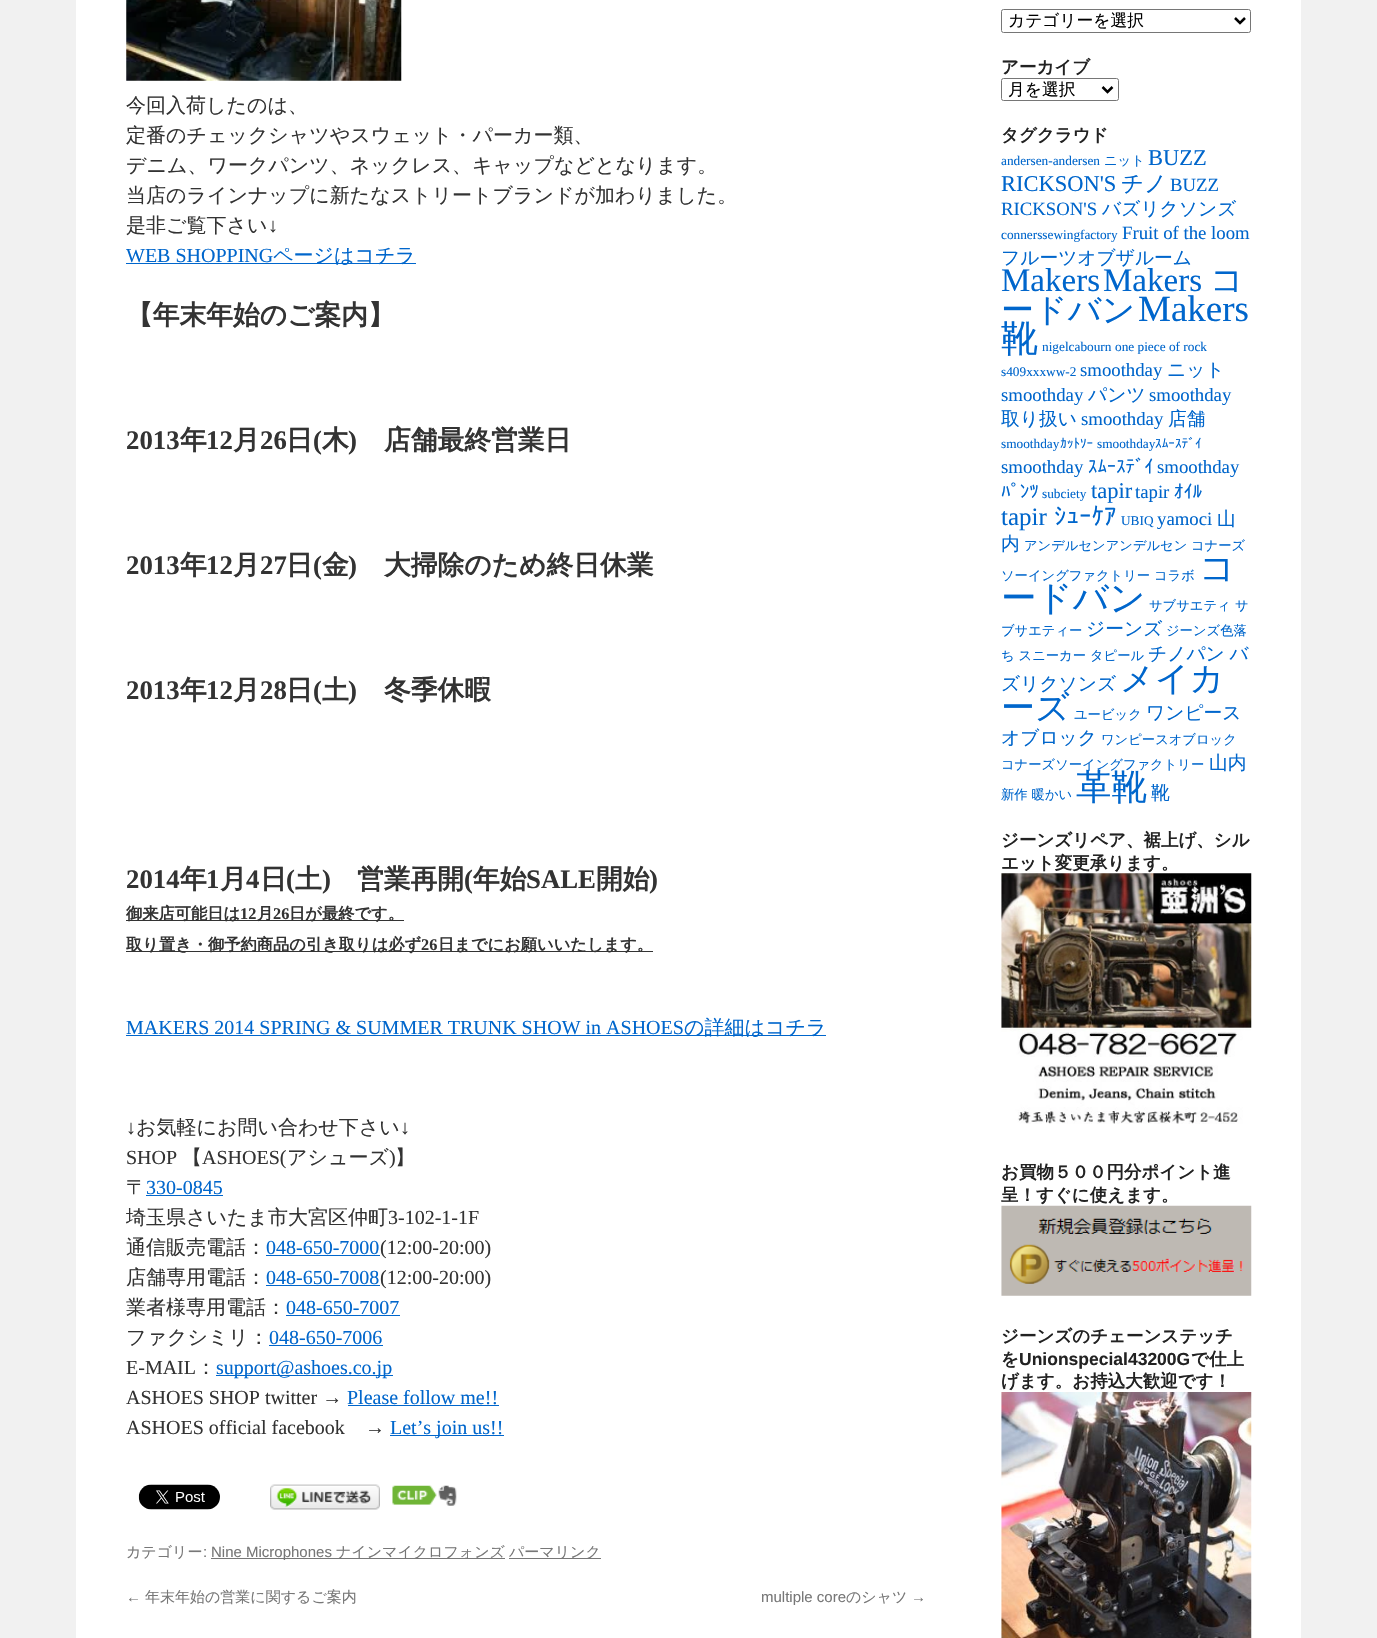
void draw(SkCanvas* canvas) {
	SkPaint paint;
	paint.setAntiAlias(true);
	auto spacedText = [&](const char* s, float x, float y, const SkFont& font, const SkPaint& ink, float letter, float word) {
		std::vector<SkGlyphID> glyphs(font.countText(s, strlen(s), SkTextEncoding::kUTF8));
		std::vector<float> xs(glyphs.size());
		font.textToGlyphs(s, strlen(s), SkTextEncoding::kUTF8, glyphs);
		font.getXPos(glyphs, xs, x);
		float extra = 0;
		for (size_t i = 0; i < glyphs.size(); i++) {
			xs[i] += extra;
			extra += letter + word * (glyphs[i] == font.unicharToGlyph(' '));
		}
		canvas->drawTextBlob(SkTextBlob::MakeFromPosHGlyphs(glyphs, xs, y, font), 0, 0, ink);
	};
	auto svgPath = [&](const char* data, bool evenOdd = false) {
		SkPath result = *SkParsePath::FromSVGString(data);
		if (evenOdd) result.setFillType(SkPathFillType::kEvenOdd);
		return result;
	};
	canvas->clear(0xfff1f1f1);
	paint.setColor(0xffffffff);
	canvas->drawRect(SkRect::MakeXYWH(76, 0, 1225, 1638), paint);
	paint.setStroke(true);
	paint.setStrokeWidth(1);
	paint.setColor(0xff767676);
	canvas->drawRoundRect(SkRect::MakeXYWH(1001.5, 9.5, 249, 23), 2, 2, paint);
	paint.setStrokeWidth(2.5);
	paint.setColor(0xff000000);
	canvas->drawPath(svgPath("M1235 18L1240 23L1245 18"), paint);
	SkFont f1(fontMgr->matchFamilyStyle("WenQuanYi Zen Hei", SkFontStyle(500, SkFontStyle::kNormal_Width, SkFontStyle::kUpright_Slant)), 16.75);
	f1.setSubpixel(true);
	paint.setStroke(false);
	canvas->drawString("カテゴリーを選択", 1008, 26, f1, paint);
	SkFont f2(fontMgr->matchFamilyStyle("WenQuanYi Zen Hei", SkFontStyle::Bold()), 17.5);
	f2.setSubpixel(true);
	paint.setColor(0xff222222);
	canvas->drawString("アーカイブ", 1001, 73, f2, paint);
	paint.setStroke(true);
	paint.setStrokeWidth(1);
	paint.setColor(0xff767676);
	canvas->drawRoundRect(SkRect::MakeXYWH(1001.5, 78.5, 117, 22), 2, 2, paint);
	paint.setStrokeWidth(2.5);
	paint.setColor(0xff000000);
	canvas->drawPath(svgPath("M1102.5 87L1107.5 92L1112.5 87"), paint);
	paint.setStroke(false);
	canvas->drawString("月を選択", 1008, 95, f1, paint);
	canvas->drawImageRect(SkImages::DeferredFromEncodedData(SkData::MakeFromFileName("img1.png")), SkRect::MakeXYWH(126, 0, 276, 81), SkSamplingOptions());
	SkFont f3(fontMgr->matchFamilyStyle("WenQuanYi Zen Hei", SkFontStyle(500, SkFontStyle::kNormal_Width, SkFontStyle::kUpright_Slant)), 20);
	f3.setSubpixel(true);
	paint.setColor(0xff333333);
	canvas->drawString("今回入荷したのは、", 126, 112, f3, paint);
	canvas->drawString("定番のチェックシャツやスウェット・パーカー類、", 126, 142, f3, paint);
	canvas->drawString("デニム、ワークパンツ、ネックレス、キャップなどとなります。", 126, 172, f3, paint);
	canvas->drawString("当店のラインナップに新たなストリートブランドが加わりました。", 126, 202, f3, paint);
	canvas->drawString("是非ご覧下さい", 126, 232, f3, paint);
	SkFont f4(fontMgr->matchFamilyStyle("Liberation Serif", SkFontStyle::Normal()), 20);
	f4.setSubpixel(true);
	canvas->drawString("↓", 268, 232, f4, paint);
	paint.setColor(0xff0066cc);
	canvas->drawString("WEB SHOPPING", 126, 262, f4, paint);
	canvas->drawRect(SkRect::MakeXYWH(126, 263, 290, 1), paint);
	canvas->drawString("ページはコチラ", 273, 262, f3, paint);
	SkFont f5(fontMgr->matchFamilyStyle("WenQuanYi Zen Hei", SkFontStyle::Bold()), 26.75);
	f5.setSubpixel(true);
	paint.setColor(0xff333333);
	canvas->drawString("【年末年始のご案内】", 126, 324, f5, paint);
	SkFont f6(fontMgr->matchFamilyStyle("Liberation Serif", SkFontStyle::Bold()), 26.75);
	f6.setSubpixel(true);
	canvas->drawString("2013", 126, 449, f6, paint);
	canvas->drawString("年", 180, 449, f5, paint);
	canvas->drawString("12", 206, 449, f6, paint);
	canvas->drawString("月", 233, 449, f5, paint);
	canvas->drawString("26", 260, 449, f6, paint);
	canvas->drawString("日", 286, 449, f5, paint);
	canvas->drawString("(", 313, 449, f6, paint);
	canvas->drawString("木", 322, 449, f5, paint);
	canvas->drawString(")", 348, 449, f6, paint);
	canvas->drawString("店舗最終営業日", 384, 449, f5, paint);
	canvas->drawString("2013", 126, 574, f6, paint);
	canvas->drawString("年", 180, 574, f5, paint);
	canvas->drawString("12", 206, 574, f6, paint);
	canvas->drawString("月", 233, 574, f5, paint);
	canvas->drawString("27", 260, 574, f6, paint);
	canvas->drawString("日", 286, 574, f5, paint);
	canvas->drawString("(", 313, 574, f6, paint);
	canvas->drawString("金", 322, 574, f5, paint);
	canvas->drawString(")", 348, 574, f6, paint);
	canvas->drawString("大掃除のため終日休業", 384, 574, f5, paint);
	canvas->drawString("2013", 126, 699, f6, paint);
	canvas->drawString("年", 180, 699, f5, paint);
	canvas->drawString("12", 206, 699, f6, paint);
	canvas->drawString("月", 233, 699, f5, paint);
	canvas->drawString("28", 260, 699, f6, paint);
	canvas->drawString("日", 286, 699, f5, paint);
	canvas->drawString("(", 313, 699, f6, paint);
	canvas->drawString("土", 322, 699, f5, paint);
	canvas->drawString(")", 348, 699, f6, paint);
	canvas->drawString("冬季休暇", 384, 699, f5, paint);
	canvas->drawString("2014", 126, 888, f6, paint);
	canvas->drawString("年", 180, 888, f5, paint);
	canvas->drawString("1", 206, 888, f6, paint);
	canvas->drawString("月", 220, 888, f5, paint);
	canvas->drawString("4", 246, 888, f6, paint);
	canvas->drawString("日", 260, 888, f5, paint);
	canvas->drawString("(", 286, 888, f6, paint);
	canvas->drawString("土", 295, 888, f5, paint);
	canvas->drawString(")", 322, 888, f6, paint);
	canvas->drawString("営業再開", 357, 888, f5, paint);
	canvas->drawString("(", 464, 888, f6, paint);
	canvas->drawString("年始", 473, 888, f5, paint);
	canvas->drawString("SALE", 526, 888, f6, paint);
	canvas->drawString("開始", 596, 888, f5, paint);
	canvas->drawString(")", 649, 888, f6, paint);
	canvas->drawRect(SkRect::MakeXYWH(126, 920, 278, 1), paint);
	SkFont f7(fontMgr->matchFamilyStyle("WenQuanYi Zen Hei", SkFontStyle::Bold()), 16.25);
	f7.setSubpixel(true);
	canvas->drawString("御来店可能日は", 126, 919, f7, paint);
	SkFont f8(fontMgr->matchFamilyStyle("Liberation Serif", SkFontStyle::Bold()), 16.25);
	f8.setSubpixel(true);
	canvas->drawString("12", 240, 919, f8, paint);
	canvas->drawString("月", 257, 919, f7, paint);
	canvas->drawString("26", 273, 919, f8, paint);
	canvas->drawString("日が最終です。", 289, 919, f7, paint);
	canvas->drawRect(SkRect::MakeXYWH(126, 951, 527, 1), paint);
	canvas->drawString("取り置き・御予約商品の引き取りは必ず", 126, 950, f7, paint);
	canvas->drawString("26", 421, 950, f8, paint);
	canvas->drawString("日までにお願いいたします。", 438, 950, f7, paint);
	paint.setColor(0xff0066cc);
	canvas->drawString("MAKERS 2014 SPRING & SUMMER TRUNK SHOW in ASHOES", 126, 1034, f4, paint);
	canvas->drawRect(SkRect::MakeXYWH(126, 1035, 700, 1), paint);
	canvas->drawString("の詳細はコチラ", 684, 1034, f3, paint);
	paint.setColor(0xff333333);
	canvas->drawString("↓", 126, 1134, f4, paint);
	canvas->drawString("お気軽にお問い合わせ下さい", 136, 1134, f3, paint);
	canvas->drawString("↓", 400, 1134, f4, paint);
	canvas->drawString("SHOP", 126, 1164, f4, paint);
	canvas->drawString("【", 182, 1164, f3, paint);
	canvas->drawString("ASHOES(", 202, 1164, f4, paint);
	canvas->drawString("アシューズ", 287, 1164, f3, paint);
	canvas->drawString(")", 389, 1164, f4, paint);
	canvas->drawString("】", 395, 1164, f3, paint);
	canvas->drawString("〒", 126, 1194, f3, paint);
	paint.setColor(0xff0066cc);
	canvas->drawString("330-0845", 146, 1194, f4, paint);
	canvas->drawRect(SkRect::MakeXYWH(146, 1195, 77, 1), paint);
	paint.setColor(0xff333333);
	canvas->drawString("埼玉県さいたま市大宮区仲町", 126, 1224, f3, paint);
	canvas->drawString("3-102-1-1F", 388, 1224, f4, paint);
	canvas->drawString("通信販売電話：", 126, 1254, f3, paint);
	paint.setColor(0xff0066cc);
	canvas->drawString("048-650-7000", 266, 1254, f4, paint);
	paint.setColor(0xff333333);
	canvas->drawString("(12:00-20:00)", 380, 1254, f4, paint);
	paint.setColor(0xff0066cc);
	canvas->drawRect(SkRect::MakeXYWH(266, 1255, 114, 1), paint);
	paint.setColor(0xff333333);
	canvas->drawString("店舗専用電話：", 126, 1284, f3, paint);
	paint.setColor(0xff0066cc);
	canvas->drawString("048-650-7008", 266, 1284, f4, paint);
	paint.setColor(0xff333333);
	canvas->drawString("(12:00-20:00)", 380, 1284, f4, paint);
	paint.setColor(0xff0066cc);
	canvas->drawRect(SkRect::MakeXYWH(266, 1285, 114, 1), paint);
	paint.setColor(0xff333333);
	canvas->drawString("業者様専用電話：", 126, 1314, f3, paint);
	paint.setColor(0xff0066cc);
	canvas->drawString("048-650-7007", 286, 1314, f4, paint);
	canvas->drawRect(SkRect::MakeXYWH(286, 1315, 114, 1), paint);
	paint.setColor(0xff333333);
	canvas->drawString("ファクシミリ：", 126, 1344, f3, paint);
	paint.setColor(0xff0066cc);
	canvas->drawString("048-650-7006", 269, 1344, f4, paint);
	canvas->drawRect(SkRect::MakeXYWH(269, 1345, 114, 1), paint);
	paint.setColor(0xff333333);
	canvas->drawString("E-MAIL", 126, 1374, f4, paint);
	canvas->drawString("：", 196, 1374, f3, paint);
	paint.setColor(0xff0066cc);
	canvas->drawRect(SkRect::MakeXYWH(216, 1375, 177, 1), paint);
	canvas->drawString("support@ashoes.co.jp", 216, 1374, f4, paint);
	paint.setColor(0xff333333);
	canvas->drawString("ASHOES SHOP twitter →", 126, 1404, f4, paint);
	paint.setColor(0xff0066cc);
	canvas->drawString("Please follow me!!", 347, 1404, f4, paint);
	canvas->drawRect(SkRect::MakeXYWH(348, 1405, 151, 1), paint);
	paint.setColor(0xff333333);
	canvas->drawString("ASHOES official facebook", 126, 1434, f4, paint);
	canvas->drawString("→", 365, 1434, f4, paint);
	paint.setColor(0xff0066cc);
	canvas->drawRect(SkRect::MakeXYWH(390, 1435, 114, 1), paint);
	canvas->drawString("Let’s join us!!", 390, 1434, f4, paint);
	canvas->drawImageRect(SkImages::DeferredFromEncodedData(SkData::MakeFromFileName("img2.png")), SkRect::MakeXYWH(138, 1484, 82, 26), SkSamplingOptions());
	canvas->drawImageRect(SkImages::DeferredFromEncodedData(SkData::MakeFromFileName("img3.png")), SkRect::MakeXYWH(270, 1484, 110, 26), SkSamplingOptions());
	canvas->drawImageRect(SkImages::DeferredFromEncodedData(SkData::MakeFromFileName("img4.png")), SkRect::MakeXYWH(392, 1485, 65, 21), SkSamplingOptions());
	SkFont f9(fontMgr->matchFamilyStyle("WenQuanYi Zen Hei", SkFontStyle(500, SkFontStyle::kNormal_Width, SkFontStyle::kUpright_Slant)), 15);
	f9.setSubpixel(true);
	paint.setColor(0xff777777);
	canvas->drawString("カテゴリー", 126, 1557, f9, paint);
	SkFont f10(fontMgr->matchFamilyStyle("Liberation Sans", SkFontStyle::Normal()), 15);
	f10.setSubpixel(true);
	canvas->drawString(":", 203, 1557, f10, paint);
	canvas->drawRect(SkRect::MakeXYWH(211, 1558, 294, 1), paint);
	canvas->drawString("Nine Microphones", 211, 1557, f10, paint);
	canvas->drawString("ナインマイクロフォンズ", 336, 1557, f9, paint);
	canvas->drawRect(SkRect::MakeXYWH(509, 1558, 92, 1), paint);
	canvas->drawString("パーマリンク", 509, 1557, f9, paint);
	canvas->drawString("←", 126, 1602, f10, paint);
	canvas->drawString("年末年始の営業に関するご案内", 145, 1602, f9, paint);
	canvas->drawString("multiple core", 761, 1602, f10, paint);
	canvas->drawString("のシャツ", 846, 1602, f9, paint);
	canvas->drawString("→", 911, 1602, f10, paint);
	paint.setColor(0xff222222);
	canvas->drawString("タグクラウド", 1001, 141, f2, paint);
	SkFont f11(fontMgr->matchFamilyStyle("Liberation Serif", SkFontStyle::Normal()), 13.3);
	f11.setSubpixel(true);
	paint.setColor(0xff0066cc);
	canvas->drawString("andersen-andersen", 1001, 165, f11, paint);
	SkFont f12(fontMgr->matchFamilyStyle("WenQuanYi Zen Hei", SkFontStyle(500, SkFontStyle::kNormal_Width, SkFontStyle::kUpright_Slant)), 13.3);
	f12.setSubpixel(true);
	canvas->drawString("ニット", 1104, 165, f12, paint);
	SkFont f13(fontMgr->matchFamilyStyle("Liberation Serif", SkFontStyle::Normal()), 22.5);
	f13.setSubpixel(true);
	canvas->drawString("BUZZ", 1148, 165, f13, paint);
	canvas->drawString("RICKSON'S", 1001, 191, f13, paint);
	SkFont f14(fontMgr->matchFamilyStyle("WenQuanYi Zen Hei", SkFontStyle(500, SkFontStyle::kNormal_Width, SkFontStyle::kUpright_Slant)), 22.5);
	f14.setSubpixel(true);
	canvas->drawString("チノ", 1121, 191, f14, paint);
	SkFont f15(fontMgr->matchFamilyStyle("Liberation Serif", SkFontStyle::Normal()), 18.75);
	f15.setSubpixel(true);
	canvas->drawString("BUZZ", 1170, 191, f15, paint);
	canvas->drawString("RICKSON'S", 1001, 215, f15, paint);
	SkFont f16(fontMgr->matchFamilyStyle("WenQuanYi Zen Hei", SkFontStyle(500, SkFontStyle::kNormal_Width, SkFontStyle::kUpright_Slant)), 18.75);
	f16.setSubpixel(true);
	canvas->drawString("バズリクソンズ", 1102, 215, f16, paint);
	canvas->drawString("connerssewingfactory", 1001, 239, f11, paint);
	canvas->drawString("Fruit of the loom", 1122, 239, f15, paint);
	canvas->drawString("フルーツオブザルーム", 1001, 264, f16, paint);
	SkFont f17(fontMgr->matchFamilyStyle("Liberation Serif", SkFontStyle::Normal()), 33);
	f17.setSubpixel(true);
	canvas->drawString("Makers", 1001, 291, f17, paint);
	canvas->drawString("Makers", 1103, 291, f17, paint);
	SkFont f18(fontMgr->matchFamilyStyle("WenQuanYi Zen Hei", SkFontStyle(500, SkFontStyle::kNormal_Width, SkFontStyle::kUpright_Slant)), 33);
	f18.setSubpixel(true);
	canvas->drawString("コ", 1210, 291, f18, paint);
	canvas->drawString("ードバン", 1001, 321, f18, paint);
	SkFont f19(fontMgr->matchFamilyStyle("Liberation Serif", SkFontStyle::Normal()), 37);
	f19.setSubpixel(true);
	canvas->drawString("Makers", 1138, 321, f19, paint);
	SkFont f20(fontMgr->matchFamilyStyle("WenQuanYi Zen Hei", SkFontStyle(500, SkFontStyle::kNormal_Width, SkFontStyle::kUpright_Slant)), 37);
	f20.setSubpixel(true);
	canvas->drawString("靴", 1001, 351, f20, paint);
	canvas->drawString("nigelcabourn", 1042, 351, f11, paint);
	canvas->drawString("one piece of rock", 1115, 351, f11, paint);
	canvas->drawString("s409xxxww-2", 1001, 376, f11, paint);
	canvas->drawString("smoothday", 1080, 376, f15, paint);
	canvas->drawString("ニット", 1167, 376, f16, paint);
	canvas->drawString("smoothday", 1001, 401, f15, paint);
	canvas->drawString("パンツ", 1088, 401, f16, paint);
	canvas->drawString("smoothday", 1149, 401, f15, paint);
	canvas->drawString("取り扱い", 1001, 425, f16, paint);
	canvas->drawString("smoothday", 1081, 425, f15, paint);
	canvas->drawString("店舗", 1168, 425, f16, paint);
	canvas->drawString("smoothday", 1001, 448, f11, paint);
	SkFont f21(fontMgr->matchFamilyStyle("IPAPGothic", SkFontStyle::Normal()), 13.3);
	f21.setSubpixel(true);
	canvas->drawString("ｶｯﾄｿｰ", 1060, 448, f21, paint);
	canvas->drawString("smoothday", 1097, 448, f11, paint);
	canvas->drawString("ｽﾑｰｽﾃﾞｲ", 1155, 448, f21, paint);
	canvas->drawString("smoothday", 1001, 473, f15, paint);
	SkFont f22(fontMgr->matchFamilyStyle("IPAPGothic", SkFontStyle::Normal()), 18.75);
	f22.setSubpixel(true);
	canvas->drawString("ｽﾑｰｽﾃﾞｲ", 1088, 473, f22, paint);
	canvas->drawString("smoothday", 1157, 473, f15, paint);
	canvas->drawString("ﾊﾟﾝﾂ", 1001, 498, f22, paint);
	canvas->drawString("subciety", 1042, 498, f11, paint);
	canvas->drawString("tapir", 1091, 498, f13, paint);
	canvas->drawString("tapir", 1135, 498, f15, paint);
	canvas->drawString("ｵｲﾙ", 1174, 498, f22, paint);
	SkFont f23(fontMgr->matchFamilyStyle("Liberation Serif", SkFontStyle::Normal()), 25);
	f23.setSubpixel(true);
	canvas->drawString("tapir", 1001, 525, f23, paint);
	SkFont f24(fontMgr->matchFamilyStyle("IPAPGothic", SkFontStyle::Normal()), 25);
	f24.setSubpixel(true);
	canvas->drawString("ｼｭｰｹｱ", 1054, 525, f24, paint);
	canvas->drawString("UBIQ", 1121, 525, f11, paint);
	canvas->drawString("yamoci", 1157, 525, f15, paint);
	canvas->drawString("山", 1217, 525, f16, paint);
	canvas->drawString("内", 1001, 550, f16, paint);
	canvas->drawString("アンデルセンアンデルセン", 1024, 550, f12, paint);
	canvas->drawString("コナーズ", 1191, 550, f12, paint);
	canvas->drawString("ソーイングファクトリー", 1001, 580, f12, paint);
	canvas->drawString("コラボ", 1154, 580, f12, paint);
	SkFont f25(fontMgr->matchFamilyStyle("WenQuanYi Zen Hei", SkFontStyle(500, SkFontStyle::kNormal_Width, SkFontStyle::kUpright_Slant)), 35.5);
	f25.setSubpixel(true);
	canvas->drawString("コ", 1199, 580, f25, paint);
	canvas->drawString("ードバン", 1001, 610, f25, paint);
	canvas->drawString("サブサエティ", 1149, 610, f12, paint);
	canvas->drawString("サ", 1235, 610, f12, paint);
	canvas->drawString("ブサエティー", 1001, 635, f12, paint);
	canvas->drawString("ジーンズ", 1086, 635, f16, paint);
	canvas->drawString("ジーンズ色落", 1166, 635, f12, paint);
	canvas->drawString("ち スニーカー", 1001, 660, f12, paint);
	canvas->drawString("タピール", 1090, 660, f12, paint);
	spacedText("チノパン バ", 1148, 660, f16, paint, 0, -1);
	canvas->drawString("ズリクソンズ", 1001, 690, f16, paint);
	SkFont f26(fontMgr->matchFamilyStyle("WenQuanYi Zen Hei", SkFontStyle(500, SkFontStyle::kNormal_Width, SkFontStyle::kUpright_Slant)), 34);
	f26.setSubpixel(true);
	canvas->drawString("メイカ", 1120, 690, f26, paint);
	canvas->drawString("ーズ", 1001, 719, f26, paint);
	canvas->drawString("ユービック", 1074, 719, f12, paint);
	canvas->drawString("ワンピース", 1146, 719, f16, paint);
	canvas->drawString("オブロック", 1001, 744, f16, paint);
	canvas->drawString("ワンピースオブロック", 1101, 744, f12, paint);
	canvas->drawString("コナーズソーイングファクトリー", 1001, 769, f12, paint);
	canvas->drawString("山内", 1209, 769, f16, paint);
	canvas->drawString("新作 暖かい", 1001, 799, f12, paint);
	canvas->drawString("革靴", 1076, 799, f25, paint);
	canvas->drawString("靴", 1151, 799, f16, paint);
	paint.setColor(0xff222222);
	canvas->drawString("ジーンズリペア、裾上げ、シル", 1001, 846, f2, paint);
	canvas->drawString("エット変更承ります。", 1001, 869, f2, paint);
	canvas->drawImageRect(SkImages::DeferredFromEncodedData(SkData::MakeFromFileName("img5.png")), SkRect::MakeXYWH(1001, 873, 251, 251), SkSamplingOptions());
	canvas->drawString("お買物５００円分ポイント進", 1001, 1178, f2, paint);
	canvas->drawString("呈！すぐに使えます。", 1001, 1201, f2, paint);
	canvas->drawImageRect(SkImages::DeferredFromEncodedData(SkData::MakeFromFileName("img6.png")), SkRect::MakeXYWH(1001, 1205, 251, 91), SkSamplingOptions());
	canvas->drawString("ジーンズのチェーンステッチ", 1001, 1342, f2, paint);
	canvas->drawString("を", 1001, 1365, f2, paint);
	SkFont f27(fontMgr->matchFamilyStyle("Liberation Sans", SkFontStyle::Bold()), 17.5);
	f27.setSubpixel(true);
	canvas->drawString("Unionspecial43200G", 1019, 1365, f27, paint);
	canvas->drawString("で仕上", 1191, 1365, f2, paint);
	canvas->drawString("げます。お持込大歓迎です！", 1001, 1387, f2, paint);
	canvas->drawImageRect(SkImages::DeferredFromEncodedData(SkData::MakeFromFileName("img7.png")), SkRect::MakeXYWH(1001, 1392, 251, 246), SkSamplingOptions());
}
